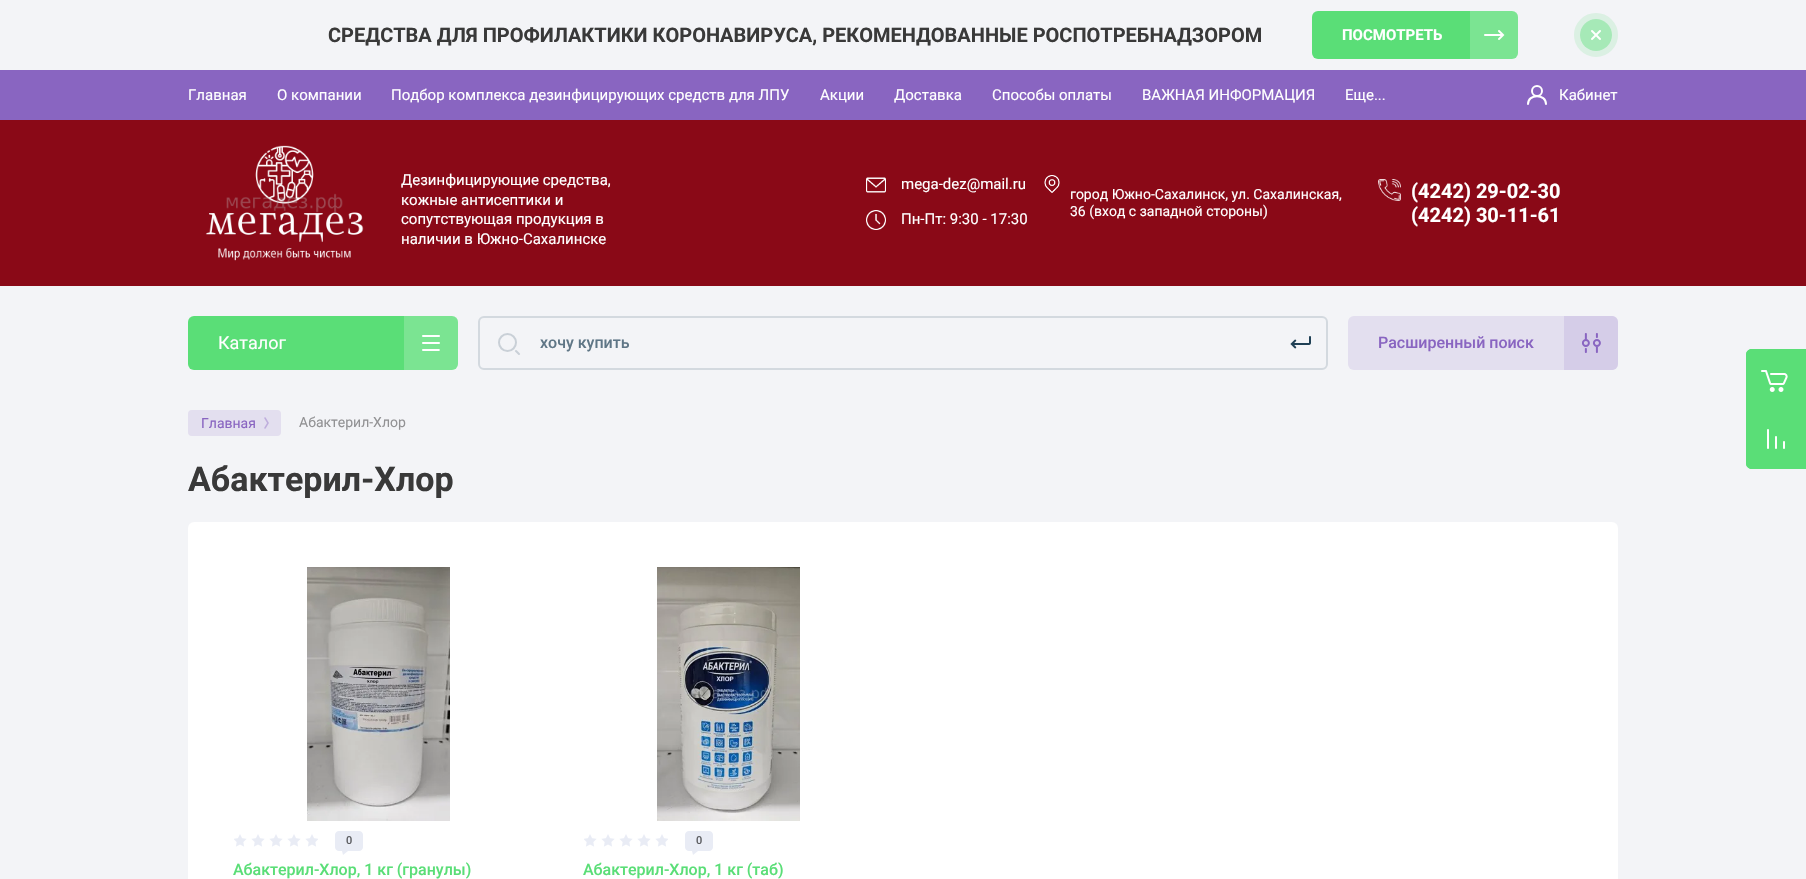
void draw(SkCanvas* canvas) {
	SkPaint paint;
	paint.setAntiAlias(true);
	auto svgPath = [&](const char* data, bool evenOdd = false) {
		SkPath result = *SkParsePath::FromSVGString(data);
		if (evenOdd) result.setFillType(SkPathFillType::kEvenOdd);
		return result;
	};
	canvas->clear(0xfff3f4f7);
	SkFont f1(fontMgr->matchFamilyStyle("Roboto", SkFontStyle::Bold()), 20);
	f1.setSubpixel(true);
	paint.setColor(0xff393939);
	canvas->drawString("СРЕДСТВА ДЛЯ ПРОФИЛАКТИКИ КОРОНАВИРУСА, РЕКОМЕНДОВАННЫЕ РОСПОТРЕБНАДЗОРОМ", 328, 42, f1, paint);
	paint.setColor(0xff5ade77);
	canvas->drawRoundRect(SkRect::MakeXYWH(1312, 11, 206, 48), 6, 6, paint);
	SkFont f2(fontMgr->matchFamilyStyle("Roboto", SkFontStyle::Bold()), 15);
	f2.setSubpixel(true);
	paint.setColor(0xffffffff);
	canvas->drawString("ПОСМОТРЕТЬ", 1342, 40, f2, paint);
	paint.setColor(0x33ffffff);
	canvas->drawPath(svgPath("M1470 11H1512C1515.5 11 1518 13.5 1518 17V53C1518 56.5 1515.5 59 1512 59H1470Z"), paint);
	canvas->drawImageRect(SkImages::DeferredFromEncodedData(SkData::MakeFromFileName("img1.png")), SkRect::MakeXYWH(1484, 30, 21, 10), SkSamplingOptions());
	paint.setStroke(true);
	paint.setStrokeWidth(6);
	paint.setColor(0xffdbf0e3);
	canvas->drawCircle(1596, 35, 19, paint);
	paint.setStroke(false);
	paint.setColor(0x805ade77);
	canvas->drawCircle(1596, 35, 16, paint);
	canvas->drawImageRect(SkImages::DeferredFromEncodedData(SkData::MakeFromFileName("img2.png")), SkRect::MakeXYWH(1591, 30, 10, 10), SkSamplingOptions());
	paint.setColor(0xff8965c1);
	canvas->drawRect(SkRect::MakeXYWH(0, 70, 1806, 50), paint);
	SkFont f3(fontMgr->matchFamilyStyle("Roboto", SkFontStyle::Normal()), 15);
	f3.setSubpixel(true);
	paint.setColor(0xffffffff);
	canvas->drawString("Главная", 188, 100, f3, paint);
	canvas->drawString("О компании", 277, 100, f3, paint);
	canvas->drawString("Подбор комплекса дезинфицирующих средств для ЛПУ", 391, 100, f3, paint);
	canvas->drawString("Акции", 820, 100, f3, paint);
	canvas->drawString("Доставка", 894, 100, f3, paint);
	canvas->drawString("Способы оплаты", 992, 100, f3, paint);
	canvas->drawString("ВАЖНАЯ ИНФОРМАЦИЯ", 1142, 100, f3, paint);
	canvas->drawString("Еще...", 1345, 100, f3, paint);
	paint.setStroke(true);
	paint.setStrokeWidth(2);
	canvas->drawCircle(1537, 91, 5, paint);
	paint.setStrokeCap(SkPaint::kRound_Cap);
	canvas->drawPath(svgPath("M1546 104C1546 93.5 1528 93.5 1528 104"), paint);
	paint.setStroke(false);
	canvas->drawString("Кабинет", 1559, 100, f3, paint);
	paint.setColor(0xff8a0917);
	canvas->drawRect(SkRect::MakeXYWH(0, 120, 1806, 166), paint);
	canvas->drawImageRect(SkImages::DeferredFromEncodedData(SkData::MakeFromFileName("img3.png")), SkRect::MakeXYWH(205, 145, 159, 116), SkSamplingOptions());
	paint.setColor(0xffffffff);
	canvas->drawString("Дезинфицирующие средства,", 401, 185, f3, paint);
	canvas->drawString("кожные антисептики и", 401, 205, f3, paint);
	canvas->drawString("сопутствующая продукция в", 401, 224, f3, paint);
	canvas->drawString("наличии в Южно-Сахалинске", 401, 244, f3, paint);
	canvas->drawImageRect(SkImages::DeferredFromEncodedData(SkData::MakeFromFileName("img4.png")), SkRect::MakeXYWH(866, 177, 20, 16), SkSamplingOptions());
	canvas->drawString("mega-dez@mail.ru", 901, 189, f3, paint);
	canvas->drawImageRect(SkImages::DeferredFromEncodedData(SkData::MakeFromFileName("img5.png")), SkRect::MakeXYWH(866, 210, 20, 20), SkSamplingOptions());
	canvas->drawString("Пн-Пт: 9:30 - 17:30", 901, 224, f3, paint);
	canvas->drawImageRect(SkImages::DeferredFromEncodedData(SkData::MakeFromFileName("img6.png")), SkRect::MakeXYWH(1044, 175, 16, 18), SkSamplingOptions());
	SkFont f4(fontMgr->matchFamilyStyle("Roboto", SkFontStyle::Normal()), 14);
	f4.setSubpixel(true);
	canvas->drawString("город Южно-Сахалинск, ул. Сахалинская,", 1070, 199, f4, paint);
	canvas->drawString("36 (вход с западной стороны)", 1070, 216, f4, paint);
	canvas->drawImageRect(SkImages::DeferredFromEncodedData(SkData::MakeFromFileName("img7.png")), SkRect::MakeXYWH(1378, 179, 23, 22), SkSamplingOptions());
	canvas->drawString("(4242) 29-02-30", 1411, 198, f1, paint);
	canvas->drawString("(4242) 30-11-61", 1411, 222, f1, paint);
	paint.setColor(0xff5ade77);
	canvas->drawRoundRect(SkRect::MakeXYWH(188, 316, 270, 54), 6, 6, paint);
	SkFont f5(fontMgr->matchFamilyStyle("Roboto", SkFontStyle::Normal()), 18);
	f5.setSubpixel(true);
	paint.setColor(0xffffffff);
	canvas->drawString("Каталог", 218, 349, f5, paint);
	paint.setColor(0x33ffffff);
	canvas->drawPath(svgPath("M404 316H452C455.5 316 458 318.5 458 322V370H404Z"), paint);
	canvas->drawImageRect(SkImages::DeferredFromEncodedData(SkData::MakeFromFileName("img8.png")), SkRect::MakeXYWH(422, 335, 18, 16), SkSamplingOptions());
	paint.setStroke(true);
	paint.setStrokeCap(SkPaint::kButt_Cap);
	paint.setColor(0xffd3d9df);
	canvas->drawRoundRect(SkRect::MakeXYWH(479, 317, 848, 52), 5, 5, paint);
	paint.setColor(0xffc9d0d7);
	canvas->drawCircle(507.5, 342.5, 8.5, paint);
	paint.setStrokeCap(SkPaint::kRound_Cap);
	canvas->drawPath(svgPath("M516 351L519 354"), paint);
	SkFont f6(fontMgr->matchFamilyStyle("Roboto", SkFontStyle(500, SkFontStyle::kNormal_Width, SkFontStyle::kUpright_Slant)), 16);
	f6.setSubpixel(true);
	paint.setStroke(false);
	paint.setColor(0xff5f7686);
	canvas->drawString("хочу купить", 540, 348, f6, paint);
	canvas->drawImageRect(SkImages::DeferredFromEncodedData(SkData::MakeFromFileName("img9.png")), SkRect::MakeXYWH(1290, 336, 21, 13), SkSamplingOptions());
	paint.setColor(0xffe3dfef);
	canvas->drawRoundRect(SkRect::MakeXYWH(1348, 316, 270, 54), 6, 6, paint);
	paint.setColor(0xff8965c1);
	canvas->drawString("Расширенный поиск", 1378, 348, f6, paint);
	paint.setColor(0x268965c1);
	canvas->drawPath(svgPath("M1564 316H1612C1615.5 316 1618 318.5 1618 322V364C1618 367.5 1615.5 370 1612 370H1564Z"), paint);
	canvas->drawImageRect(SkImages::DeferredFromEncodedData(SkData::MakeFromFileName("img10.png")), SkRect::MakeXYWH(1582, 333, 19, 20), SkSamplingOptions());
	paint.setColor(0xffe3dfef);
	canvas->drawRoundRect(SkRect::MakeXYWH(188, 410, 93, 26), 4, 4, paint);
	paint.setColor(0xff8965c1);
	canvas->drawString("Главная", 201, 428, f4, paint);
	canvas->drawImageRect(SkImages::DeferredFromEncodedData(SkData::MakeFromFileName("img11.png")), SkRect::MakeXYWH(264, 417, 5, 12), SkSamplingOptions());
	paint.setColor(0xff929294);
	canvas->drawString("Абактерил-Хлор", 299, 427, f4, paint);
	SkFont f7(fontMgr->matchFamilyStyle("Roboto", SkFontStyle::Bold()), 34);
	f7.setSubpixel(true);
	paint.setColor(0xff393939);
	canvas->drawString("Абактерил-Хлор", 188, 491, f7, paint);
	paint.setColor(0xffffffff);
	canvas->drawRoundRect(SkRect::MakeXYWH(188, 522, 1430, 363), 6, 6, paint);
	canvas->drawImageRect(SkImages::DeferredFromEncodedData(SkData::MakeFromFileName("img12.png")), SkRect::MakeXYWH(307, 567, 143, 254), SkSamplingOptions());
	canvas->drawImageRect(SkImages::DeferredFromEncodedData(SkData::MakeFromFileName("img13.png")), SkRect::MakeXYWH(234, 834, 84, 13), SkSamplingOptions());
	canvas->drawImageRect(SkImages::DeferredFromEncodedData(SkData::MakeFromFileName("img14.png")), SkRect::MakeXYWH(335, 831, 28, 24), SkSamplingOptions());
	SkFont f8(fontMgr->matchFamilyStyle("Roboto", SkFontStyle(500, SkFontStyle::kNormal_Width, SkFontStyle::kUpright_Slant)), 11);
	f8.setSubpixel(true);
	paint.setColor(0xff5d5e62);
	canvas->drawString("0", 346, 844, f8, paint);
	paint.setColor(0xff5ade77);
	canvas->drawString("Абактерил-Хлор, 1 кг (гранулы)", 233, 875, f6, paint);
	canvas->drawImageRect(SkImages::DeferredFromEncodedData(SkData::MakeFromFileName("img15.png")), SkRect::MakeXYWH(657, 567, 143, 254), SkSamplingOptions());
	canvas->drawImageRect(SkImages::DeferredFromEncodedData(SkData::MakeFromFileName("img13.png")), SkRect::MakeXYWH(584, 834, 84, 13), SkSamplingOptions());
	canvas->drawImageRect(SkImages::DeferredFromEncodedData(SkData::MakeFromFileName("img14.png")), SkRect::MakeXYWH(685, 831, 28, 24), SkSamplingOptions());
	paint.setColor(0xff5d5e62);
	canvas->drawString("0", 696, 844, f8, paint);
	paint.setColor(0xff5ade77);
	canvas->drawString("Абактерил-Хлор, 1 кг (таб)", 583, 875, f6, paint);
	canvas->drawPath(svgPath("M1752 349H1806V409H1746V355C1746 351.5 1748.5 349 1752 349Z"), paint);
	canvas->drawPath(svgPath("M1752 349H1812V409H1752C1748.5 409 1746 406.5 1746 403V355C1746 351.5 1748.5 349 1752 349Z"), paint);
	canvas->drawImageRect(SkImages::DeferredFromEncodedData(SkData::MakeFromFileName("img16.png")), SkRect::MakeXYWH(1761, 370, 27, 22), SkSamplingOptions());
	canvas->drawPath(svgPath("M1746 409H1806V469H1752C1748.5 469 1746 466.5 1746 463Z"), paint);
	canvas->drawPath(svgPath("M1752 409H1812V469H1752C1748.5 469 1746 466.5 1746 463V415C1746 411.5 1748.5 409 1752 409Z"), paint);
	canvas->drawImageRect(SkImages::DeferredFromEncodedData(SkData::MakeFromFileName("img17.png")), SkRect::MakeXYWH(1767, 429, 18, 20), SkSamplingOptions());
}
